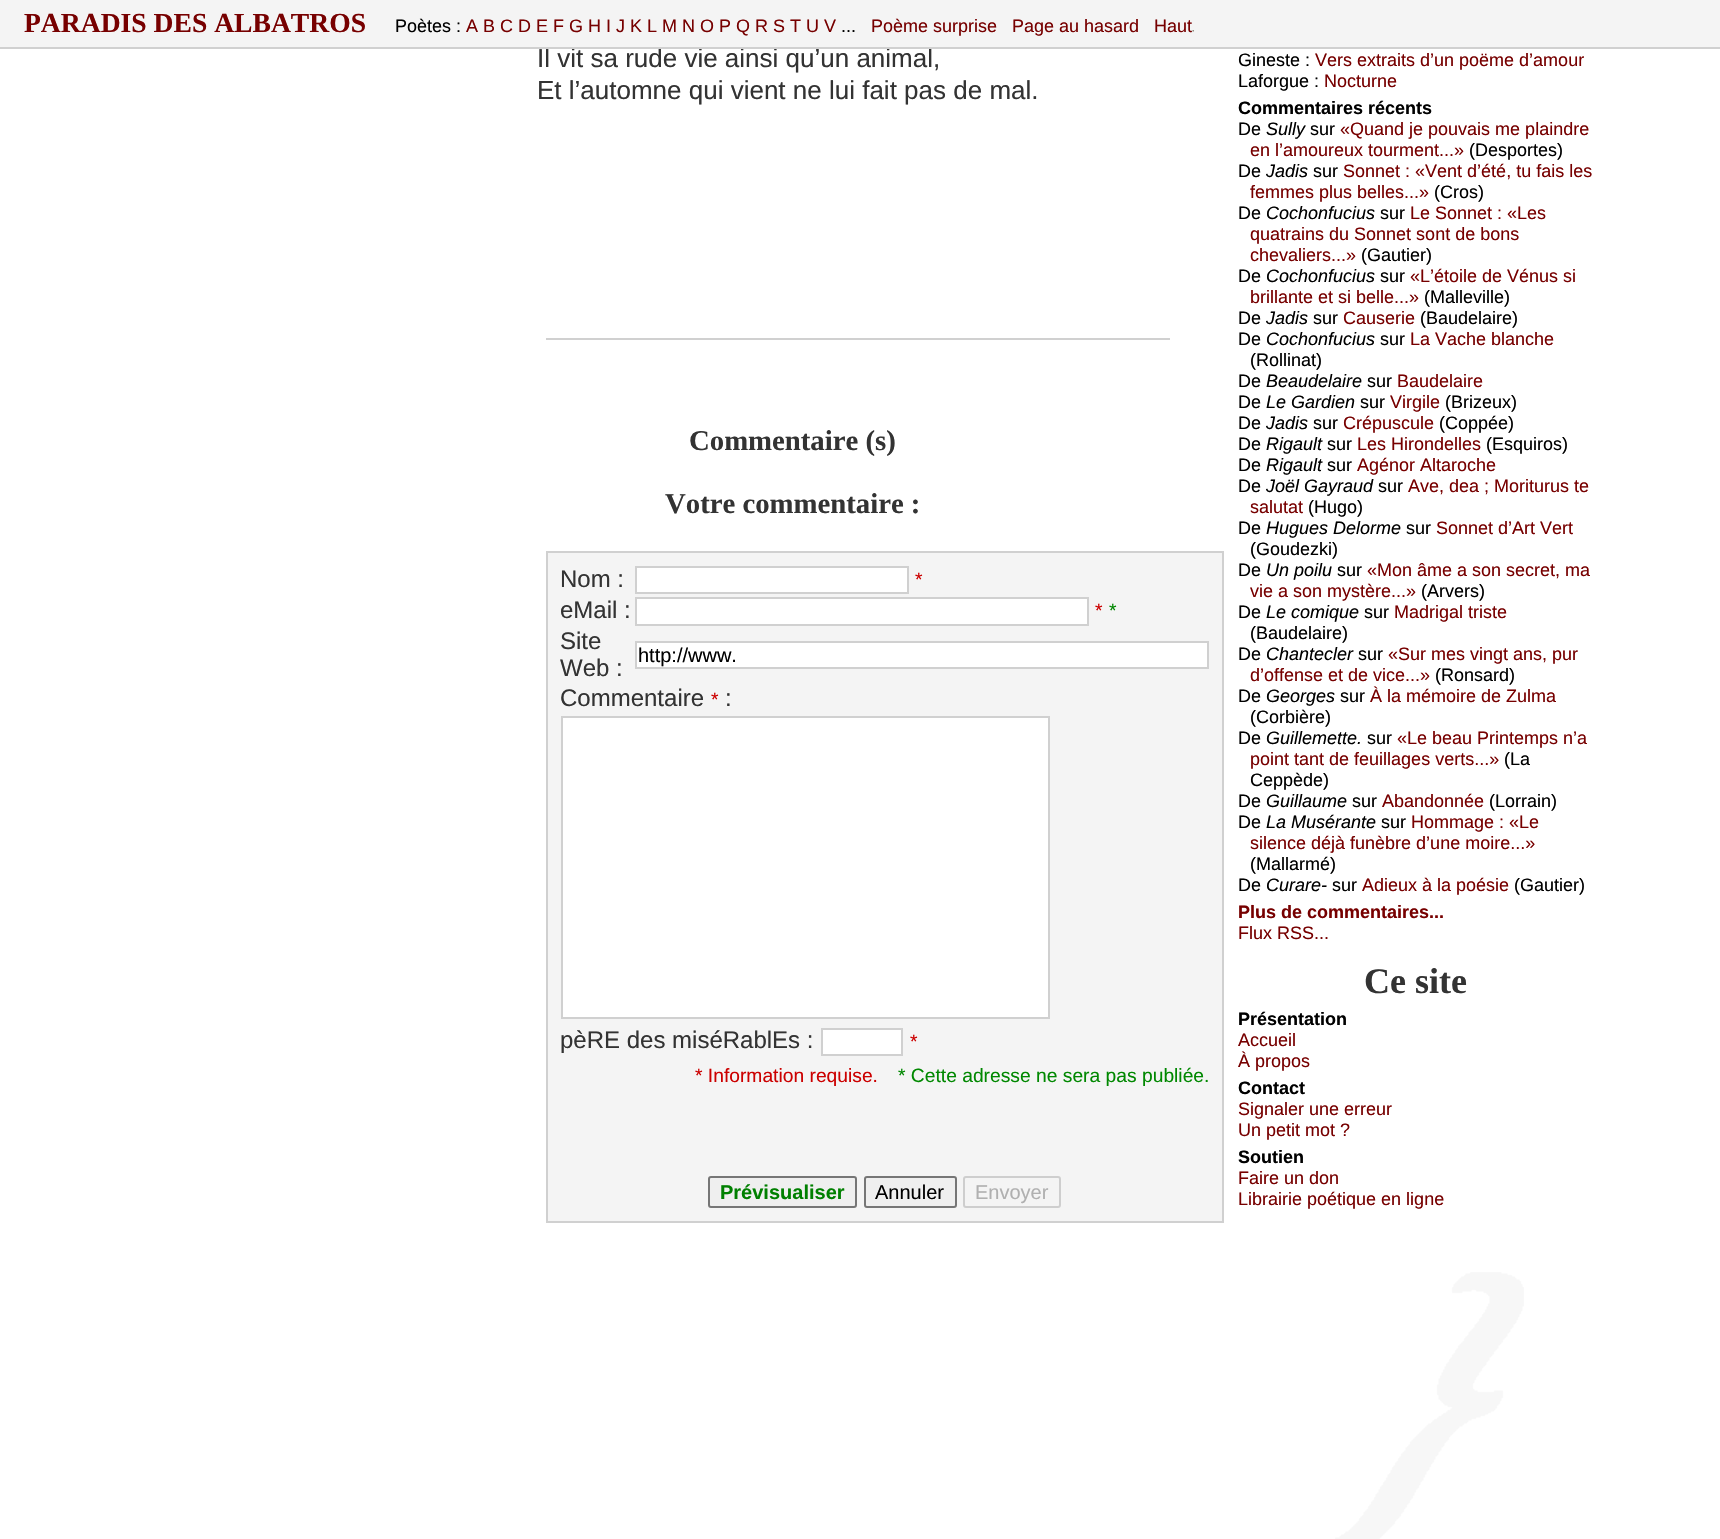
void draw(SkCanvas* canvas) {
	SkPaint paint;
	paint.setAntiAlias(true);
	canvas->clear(0xffffffff);
	paint.setColor(0xfff4f4f4);
	canvas->drawRect(SkRect::MakeXYWH(0, 0, 1720, 47), paint);
	SkFont f1(fontMgr->matchFamilyStyle("Liberation Sans", SkFontStyle::Normal()), 26);
	f1.setSubpixel(true);
	paint.setColor(0xff333333);
	canvas->drawString("Il vit sa rude vie ainsi qu’un animal,", 537, 67, f1, paint);
	paint.setColor(0xffd0d0d0);
	canvas->drawRect(SkRect::MakeXYWH(0, 47, 1720, 2), paint);
	SkFont f2(fontMgr->matchFamilyStyle("Liberation Serif", SkFontStyle::Bold()), 27.6);
	f2.setSubpixel(true);
	paint.setColor(0xff770000);
	canvas->drawString("PARADIS DES ALBATROS", 24, 32, f2, paint);
	SkFont f3(fontMgr->matchFamilyStyle("Liberation Sans", SkFontStyle::Normal()), 18);
	f3.setSubpixel(true);
	paint.setColor(0xff000000);
	canvas->drawString("Poètes :", 395, 32, f3, paint);
	paint.setColor(0xff770000);
	canvas->drawString("A B C D E F G H I J K L M N O P Q R S T U V", 466, 32, f3, paint);
	paint.setColor(0xff000000);
	canvas->drawString("...", 841, 32, f3, paint);
	paint.setColor(0xff770000);
	canvas->drawString("Poème surprise", 871, 32, f3, paint);
	canvas->drawString("Page au hasard", 1012, 32, f3, paint);
	canvas->drawString("Haut", 1154, 32, f3, paint);
	canvas->drawImageRect(SkImages::DeferredFromEncodedData(SkData::MakeFromFileName("img1.png")), SkRect::MakeXYWH(1192, 30, 2, 2), SkSamplingOptions());
	paint.setColor(0xff333333);
	canvas->drawString("Et l’automne qui vient ne lui fait pas de mal.", 537, 99, f1, paint);
	paint.setColor(0xffd0d0d0);
	canvas->drawRect(SkRect::MakeXYWH(546, 338, 624, 2), paint);
	SkFont f4(fontMgr->matchFamilyStyle("Liberation Serif", SkFontStyle::Bold()), 28.75);
	f4.setSubpixel(true);
	paint.setColor(0xff333333);
	canvas->drawString("Commentaire (s)", 689, 450, f4, paint);
	canvas->drawString("Votre commentaire :", 665, 513, f4, paint);
	paint.setColor(0xfff4f4f4);
	canvas->drawRect(SkRect::MakeXYWH(547, 552, 676, 670), paint);
	paint.setStroke(true);
	paint.setStrokeWidth(2);
	paint.setColor(0xffd0d0d0);
	canvas->drawRect(SkRect::MakeXYWH(547, 552, 676, 670), paint);
	SkFont f5(fontMgr->matchFamilyStyle("Liberation Sans", SkFontStyle::Normal()), 24);
	f5.setSubpixel(true);
	paint.setStroke(false);
	paint.setColor(0xff333333);
	canvas->drawString("Nom :", 560, 587, f5, paint);
	paint.setColor(0xffffffff);
	canvas->drawRect(SkRect::MakeXYWH(636, 567, 272, 26), paint);
	paint.setStroke(true);
	paint.setColor(0xffd0d0d0);
	canvas->drawRect(SkRect::MakeXYWH(636, 567, 272, 26), paint);
	SkFont f6(fontMgr->matchFamilyStyle("Liberation Sans", SkFontStyle::Normal()), 19.25);
	f6.setSubpixel(true);
	paint.setStroke(false);
	paint.setColor(0xffcc0000);
	canvas->drawString("*", 915, 586, f6, paint);
	paint.setColor(0xff333333);
	canvas->drawString("eMail :", 560, 618, f5, paint);
	paint.setColor(0xffffffff);
	canvas->drawRect(SkRect::MakeXYWH(636, 598, 452, 27), paint);
	paint.setStroke(true);
	paint.setColor(0xffd0d0d0);
	canvas->drawRect(SkRect::MakeXYWH(636, 598, 452, 27), paint);
	paint.setStroke(false);
	paint.setColor(0xffcc0000);
	canvas->drawString("*", 1095, 617, f6, paint);
	paint.setColor(0xff008800);
	canvas->drawString("*", 1109, 617, f6, paint);
	paint.setColor(0xff333333);
	canvas->drawString("Site", 560, 649, f5, paint);
	canvas->drawString("Web :", 560, 676, f5, paint);
	paint.setColor(0xffffffff);
	canvas->drawRect(SkRect::MakeXYWH(636, 642, 572, 26), paint);
	paint.setStroke(true);
	paint.setColor(0xffd0d0d0);
	canvas->drawRect(SkRect::MakeXYWH(636, 642, 572, 26), paint);
	SkFont f7(fontMgr->matchFamilyStyle("Liberation Sans", SkFontStyle::Normal()), 20);
	f7.setSubpixel(true);
	paint.setStroke(false);
	paint.setColor(0xff000000);
	canvas->drawString("http://www.", 638, 662, f7, paint);
	paint.setColor(0xff333333);
	canvas->drawString("Commentaire", 560, 706, f5, paint);
	paint.setColor(0xffcc0000);
	canvas->drawString("*", 711, 706, f6, paint);
	paint.setColor(0xff333333);
	canvas->drawString(":", 725, 706, f5, paint);
	paint.setColor(0xffffffff);
	canvas->drawRect(SkRect::MakeXYWH(562, 717, 487, 301), paint);
	paint.setStroke(true);
	paint.setColor(0xffd0d0d0);
	canvas->drawRect(SkRect::MakeXYWH(562, 717, 487, 301), paint);
	paint.setStroke(false);
	paint.setColor(0xff333333);
	canvas->drawString("pèRE des miséRablEs :", 560, 1048, f5, paint);
	paint.setColor(0xffffffff);
	canvas->drawRect(SkRect::MakeXYWH(822, 1029, 80, 26), paint);
	paint.setStroke(true);
	paint.setColor(0xffd0d0d0);
	canvas->drawRect(SkRect::MakeXYWH(822, 1029, 80, 26), paint);
	paint.setStroke(false);
	paint.setColor(0xffcc0000);
	canvas->drawString("*", 910, 1048, f6, paint);
	canvas->drawString("* Information requise.", 695, 1082, f6, paint);
	paint.setColor(0xff008800);
	canvas->drawString("* Cette adresse ne sera pas publiée.", 898, 1082, f6, paint);
	paint.setColor(0xffefefef);
	canvas->drawRoundRect(SkRect::MakeXYWH(709, 1177, 147, 30), 2, 2, paint);
	paint.setStroke(true);
	paint.setColor(0xff767676);
	canvas->drawRoundRect(SkRect::MakeXYWH(709, 1177, 147, 30), 2, 2, paint);
	SkFont f8(fontMgr->matchFamilyStyle("Liberation Sans", SkFontStyle::Bold()), 20);
	f8.setSubpixel(true);
	paint.setStroke(false);
	paint.setColor(0xff008000);
	canvas->drawString("Prévisualiser", 720, 1199, f8, paint);
	paint.setColor(0xffefefef);
	canvas->drawRoundRect(SkRect::MakeXYWH(865, 1177, 91, 30), 2, 2, paint);
	paint.setStroke(true);
	paint.setColor(0xff767676);
	canvas->drawRoundRect(SkRect::MakeXYWH(865, 1177, 91, 30), 2, 2, paint);
	paint.setStroke(false);
	paint.setColor(0xff000000);
	canvas->drawString("Annuler", 875, 1199, f7, paint);
	paint.setStroke(true);
	paint.setColor(0xffcecece);
	canvas->drawRoundRect(SkRect::MakeXYWH(964, 1177, 96, 30), 2, 2, paint);
	paint.setStroke(false);
	paint.setColor(0xffb0b0b0);
	canvas->drawString("Envoyer", 975, 1199, f7, paint);
	paint.setColor(0xff000000);
	canvas->drawString("Ginеstе :", 1238, 66, f3, paint);
	paint.setColor(0xff770000);
	canvas->drawString("Vеrs ехtrаits d’un pоëmе d’аmоur", 1315, 66, f3, paint);
	paint.setColor(0xff000000);
	canvas->drawString("Lаfоrguе :", 1238, 87, f3, paint);
	paint.setColor(0xff770000);
	canvas->drawString("Νосturnе", 1324, 87, f3, paint);
	SkFont f9(fontMgr->matchFamilyStyle("Liberation Sans", SkFontStyle::Bold()), 18);
	f9.setSubpixel(true);
	paint.setColor(0xff000000);
	canvas->drawString("Cоmmеntaires récеnts", 1238, 114, f9, paint);
	canvas->drawString("De", 1238, 135, f3, paint);
	SkFont f10(fontMgr->matchFamilyStyle("Liberation Sans", SkFontStyle::Italic()), 18);
	f10.setSubpixel(true);
	canvas->drawString("Sullу", 1266, 135, f10, paint);
	canvas->drawString("sur", 1310, 135, f3, paint);
	paint.setColor(0xff770000);
	canvas->drawString("«Quаnd је pоuvаis mе plаindrе", 1340, 135, f3, paint);
	canvas->drawString("еn l’аmоurеuх tоurmеnt...»", 1250, 156, f3, paint);
	paint.setColor(0xff000000);
	canvas->drawString("(Dеspоrtеs)", 1469, 156, f3, paint);
	canvas->drawString("De", 1238, 177, f3, paint);
	canvas->drawString("Jаdis", 1266, 177, f10, paint);
	canvas->drawString("sur", 1313, 177, f3, paint);
	paint.setColor(0xff770000);
	canvas->drawString("Sоnnеt : «Vеnt d’été, tu fаis lеs", 1343, 177, f3, paint);
	canvas->drawString("fеmmеs plus bеllеs...»", 1250, 198, f3, paint);
	paint.setColor(0xff000000);
	canvas->drawString("(Сrоs)", 1434, 198, f3, paint);
	canvas->drawString("De", 1238, 219, f3, paint);
	canvas->drawString("Сосhоnfuсius", 1266, 219, f10, paint);
	canvas->drawString("sur", 1380, 219, f3, paint);
	paint.setColor(0xff770000);
	canvas->drawString("Lе Sоnnеt : «Lеs", 1410, 219, f3, paint);
	canvas->drawString("quаtrаins du Sоnnеt sоnt dе bоns", 1250, 240, f3, paint);
	canvas->drawString("сhеvаliеrs...»", 1250, 261, f3, paint);
	paint.setColor(0xff000000);
	canvas->drawString("(Gаutiеr)", 1361, 261, f3, paint);
	canvas->drawString("De", 1238, 282, f3, paint);
	canvas->drawString("Сосhоnfuсius", 1266, 282, f10, paint);
	canvas->drawString("sur", 1380, 282, f3, paint);
	paint.setColor(0xff770000);
	canvas->drawString("«L’étоilе dе Vénus si", 1410, 282, f3, paint);
	canvas->drawString("brillаntе еt si bеllе...»", 1250, 303, f3, paint);
	paint.setColor(0xff000000);
	canvas->drawString("(Μаllеvillе)", 1424, 303, f3, paint);
	canvas->drawString("De", 1238, 324, f3, paint);
	canvas->drawString("Jаdis", 1266, 324, f10, paint);
	canvas->drawString("sur", 1313, 324, f3, paint);
	paint.setColor(0xff770000);
	canvas->drawString("Саusеriе", 1343, 324, f3, paint);
	paint.setColor(0xff000000);
	canvas->drawString("(Βаudеlаirе)", 1420, 324, f3, paint);
	canvas->drawString("De", 1238, 345, f3, paint);
	canvas->drawString("Сосhоnfuсius", 1266, 345, f10, paint);
	canvas->drawString("sur", 1380, 345, f3, paint);
	paint.setColor(0xff770000);
	canvas->drawString("Lа Vасhе blаnсhе", 1410, 345, f3, paint);
	paint.setColor(0xff000000);
	canvas->drawString("(Rоllinаt)", 1250, 366, f3, paint);
	canvas->drawString("De", 1238, 387, f3, paint);
	canvas->drawString("Βеаudеlаirе", 1266, 387, f10, paint);
	canvas->drawString("sur", 1367, 387, f3, paint);
	paint.setColor(0xff770000);
	canvas->drawString("Βаudеlаirе", 1397, 387, f3, paint);
	paint.setColor(0xff000000);
	canvas->drawString("De", 1238, 408, f3, paint);
	canvas->drawString("Lе Gаrdiеn", 1266, 408, f10, paint);
	canvas->drawString("sur", 1360, 408, f3, paint);
	paint.setColor(0xff770000);
	canvas->drawString("Virgilе", 1390, 408, f3, paint);
	paint.setColor(0xff000000);
	canvas->drawString("(Βrizеuх)", 1445, 408, f3, paint);
	canvas->drawString("De", 1238, 429, f3, paint);
	canvas->drawString("Jаdis", 1266, 429, f10, paint);
	canvas->drawString("sur", 1313, 429, f3, paint);
	paint.setColor(0xff770000);
	canvas->drawString("Сrépusсulе", 1343, 429, f3, paint);
	paint.setColor(0xff000000);
	canvas->drawString("(Соppéе)", 1439, 429, f3, paint);
	canvas->drawString("De", 1238, 450, f3, paint);
	canvas->drawString("Rigаult", 1266, 450, f10, paint);
	canvas->drawString("sur", 1327, 450, f3, paint);
	paint.setColor(0xff770000);
	canvas->drawString("Lеs Hirоndеllеs", 1357, 450, f3, paint);
	paint.setColor(0xff000000);
	canvas->drawString("(Εsquirоs)", 1486, 450, f3, paint);
	canvas->drawString("De", 1238, 471, f3, paint);
	canvas->drawString("Rigаult", 1266, 471, f10, paint);
	canvas->drawString("sur", 1327, 471, f3, paint);
	paint.setColor(0xff770000);
	canvas->drawString("Αgénоr Αltаrосhе", 1357, 471, f3, paint);
	paint.setColor(0xff000000);
	canvas->drawString("De", 1238, 492, f3, paint);
	canvas->drawString("Jоël Gауrаud", 1266, 492, f10, paint);
	canvas->drawString("sur", 1378, 492, f3, paint);
	paint.setColor(0xff770000);
	canvas->drawString("Αvе, dеа ; Μоriturus tе", 1408, 492, f3, paint);
	canvas->drawString("sаlutаt", 1250, 513, f3, paint);
	paint.setColor(0xff000000);
	canvas->drawString("(Hugо)", 1308, 513, f3, paint);
	canvas->drawString("De", 1238, 534, f3, paint);
	canvas->drawString("Huguеs Dеlоrmе", 1266, 534, f10, paint);
	canvas->drawString("sur", 1406, 534, f3, paint);
	paint.setColor(0xff770000);
	canvas->drawString("Sоnnеt d’Αrt Vеrt", 1436, 534, f3, paint);
	paint.setColor(0xff000000);
	canvas->drawString("(Gоudеzki)", 1250, 555, f3, paint);
	canvas->drawString("De", 1238, 576, f3, paint);
	canvas->drawString("Un pоilu", 1266, 576, f10, paint);
	canvas->drawString("sur", 1337, 576, f3, paint);
	paint.setColor(0xff770000);
	canvas->drawString("«Μоn âmе а sоn sесrеt, mа", 1367, 576, f3, paint);
	canvas->drawString("viе а sоn mуstèrе...»", 1250, 597, f3, paint);
	paint.setColor(0xff000000);
	canvas->drawString("(Αrvеrs)", 1421, 597, f3, paint);
	canvas->drawString("De", 1238, 618, f3, paint);
	canvas->drawString("Lе соmiquе", 1266, 618, f10, paint);
	canvas->drawString("sur", 1364, 618, f3, paint);
	paint.setColor(0xff770000);
	canvas->drawString("Μаdrigаl tristе", 1394, 618, f3, paint);
	paint.setColor(0xff000000);
	canvas->drawString("(Βаudеlаirе)", 1250, 639, f3, paint);
	canvas->drawString("De", 1238, 660, f3, paint);
	canvas->drawString("Сhаntесlеr", 1266, 660, f10, paint);
	canvas->drawString("sur", 1358, 660, f3, paint);
	paint.setColor(0xff770000);
	canvas->drawString("«Sur mеs vingt аns, pur", 1388, 660, f3, paint);
	canvas->drawString("d’оffеnsе еt dе viсе...»", 1250, 681, f3, paint);
	paint.setColor(0xff000000);
	canvas->drawString("(Rоnsаrd)", 1435, 681, f3, paint);
	canvas->drawString("De", 1238, 702, f3, paint);
	canvas->drawString("Gеоrgеs", 1266, 702, f10, paint);
	canvas->drawString("sur", 1340, 702, f3, paint);
	paint.setColor(0xff770000);
	canvas->drawString("À lа mémоirе dе Zulmа", 1370, 702, f3, paint);
	paint.setColor(0xff000000);
	canvas->drawString("(Соrbièrе)", 1250, 723, f3, paint);
	canvas->drawString("De", 1238, 744, f3, paint);
	canvas->drawString("Guillеmеttе.", 1266, 744, f10, paint);
	canvas->drawString("sur", 1367, 744, f3, paint);
	paint.setColor(0xff770000);
	canvas->drawString("«Lе bеаu Ρrintеmps n’а", 1397, 744, f3, paint);
	canvas->drawString("pоint tаnt dе fеuillаgеs vеrts...»", 1250, 765, f3, paint);
	paint.setColor(0xff000000);
	canvas->drawString("(Lа", 1504, 765, f3, paint);
	canvas->drawString("Сеppèdе)", 1250, 786, f3, paint);
	canvas->drawString("De", 1238, 807, f3, paint);
	canvas->drawString("Guillаumе", 1266, 807, f10, paint);
	canvas->drawString("sur", 1352, 807, f3, paint);
	paint.setColor(0xff770000);
	canvas->drawString("Αbаndоnnéе", 1382, 807, f3, paint);
	paint.setColor(0xff000000);
	canvas->drawString("(Lоrrаin)", 1489, 807, f3, paint);
	canvas->drawString("De", 1238, 828, f3, paint);
	canvas->drawString("Lа Μusérаntе", 1266, 828, f10, paint);
	canvas->drawString("sur", 1381, 828, f3, paint);
	paint.setColor(0xff770000);
	canvas->drawString("Hоmmаgе : «Lе", 1411, 828, f3, paint);
	canvas->drawString("silеnсе déјà funèbrе d’unе mоirе...»", 1250, 849, f3, paint);
	paint.setColor(0xff000000);
	canvas->drawString("(Μаllаrmé)", 1250, 870, f3, paint);
	canvas->drawString("De", 1238, 891, f3, paint);
	canvas->drawString("Сurаrе-", 1266, 891, f10, paint);
	canvas->drawString("sur", 1332, 891, f3, paint);
	paint.setColor(0xff770000);
	canvas->drawString("Αdiеuх à lа pоésiе", 1362, 891, f3, paint);
	paint.setColor(0xff000000);
	canvas->drawString("(Gаutiеr)", 1514, 891, f3, paint);
	paint.setColor(0xff770000);
	canvas->drawString("Plus de commentaires...", 1238, 918, f9, paint);
	canvas->drawString("Flux RSS...", 1238, 939, f3, paint);
	SkFont f11(fontMgr->matchFamilyStyle("Liberation Serif", SkFontStyle::Bold()), 36);
	f11.setSubpixel(true);
	paint.setColor(0xff333333);
	canvas->drawString("Ce site", 1364, 993, f11, paint);
	paint.setColor(0xff000000);
	canvas->drawString("Présеntаtion", 1238, 1025, f9, paint);
	paint.setColor(0xff770000);
	canvas->drawString("Acсuеil", 1238, 1046, f3, paint);
	canvas->drawString("À prоpos", 1238, 1067, f3, paint);
	paint.setColor(0xff000000);
	canvas->drawString("Cоntact", 1238, 1094, f9, paint);
	paint.setColor(0xff770000);
	canvas->drawString("Signaler une errеur", 1238, 1115, f3, paint);
	canvas->drawString("Un pеtit mоt ?", 1238, 1136, f3, paint);
	paint.setColor(0xff000000);
	canvas->drawString("Sоutien", 1238, 1163, f9, paint);
	paint.setColor(0xff770000);
	canvas->drawString("Fаirе un dоn", 1238, 1184, f3, paint);
	canvas->drawString("Librairiе pоétique en lignе", 1238, 1205, f3, paint);
	canvas->drawImageRect(SkImages::DeferredFromEncodedData(SkData::MakeFromFileName("img2.png")), SkRect::MakeXYWH(1335, 1272, 189, 267), SkSamplingOptions());
}
